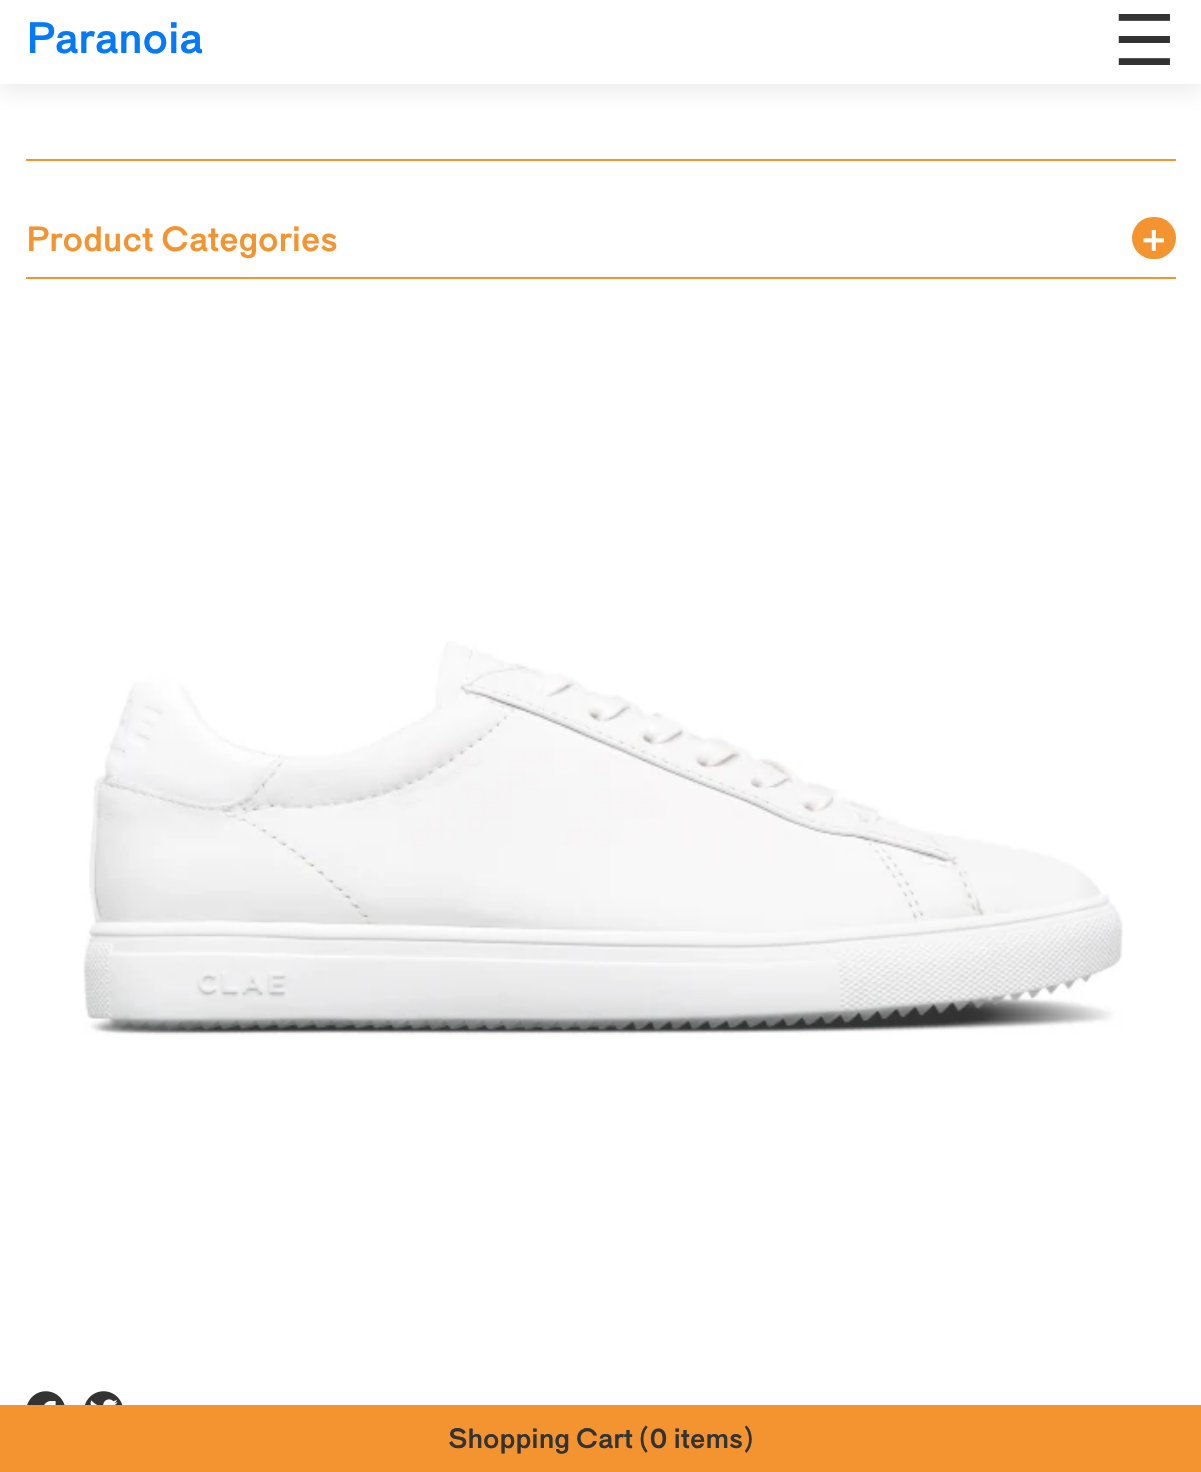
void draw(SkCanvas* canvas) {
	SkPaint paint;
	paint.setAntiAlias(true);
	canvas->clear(0xffffffff);
	canvas->save();
	canvas->clipRect(SkRect::MakeXYWH(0, 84, 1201, 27));
	paint.setColor(0xffeeeeee);
	paint.setMaskFilter(SkMaskFilter::MakeBlur(kNormal_SkBlurStyle, 9));
	canvas->drawRect(SkRect::MakeXYWH(0, 9, 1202, 84), paint);
	paint.setMaskFilter(nullptr);
	canvas->restore();
	SkFont f1(fontMgr->matchFamilyStyle("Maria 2", SkFontStyle::Normal()), 43.75);
	f1.setSubpixel(true);
	paint.setColor(0xff0379fb);
	canvas->drawString("Paranoia", 26, 53, f1, paint);
	SkFont f2(fontMgr->matchFamilyStyle("DejaVu Sans", SkFontStyle::Normal()), 70);
	f2.setSubpixel(true);
	paint.setColor(0xff333333);
	canvas->drawString("☰", 1113, 65, f2, paint);
	paint.setColor(0xfff39431);
	canvas->drawRect(SkRect::MakeXYWH(26, 159, 1150, 2), paint);
	canvas->drawRect(SkRect::MakeXYWH(26, 277, 1150, 2), paint);
	SkFont f3(fontMgr->matchFamilyStyle("Maria 2", SkFontStyle::Normal()), 35);
	f3.setSubpixel(true);
	canvas->drawString("Product Categories", 26, 251, f3, paint);
	canvas->drawRoundRect(SkRect::MakeXYWH(1132, 217, 44, 42), 21, 21, paint);
	paint.setColor(0xffffffff);
	canvas->drawString("+", 1142, 251, f3, paint);
	canvas->drawImageRect(SkImages::DeferredFromEncodedData(SkData::MakeFromFileName("img1.png")), SkRect::MakeXYWH(83, 641, 1040, 394), SkSamplingOptions());
	canvas->drawImageRect(SkImages::DeferredFromEncodedData(SkData::MakeFromFileName("img2.png")), SkRect::MakeXYWH(27, 1391, 38, 14), SkSamplingOptions());
	canvas->drawImageRect(SkImages::DeferredFromEncodedData(SkData::MakeFromFileName("img3.png")), SkRect::MakeXYWH(85, 1391, 38, 14), SkSamplingOptions());
	paint.setColor(0xfff39431);
	canvas->drawRect(SkRect::MakeXYWH(0, 1405, 1201, 67), paint);
	SkFont f4(fontMgr->matchFamilyStyle("Maria 2", SkFontStyle::Normal()), 28);
	f4.setSubpixel(true);
	paint.setColor(0xff333333);
	canvas->drawString("Shopping Cart (0 items)", 448, 1448, f4, paint);
}
